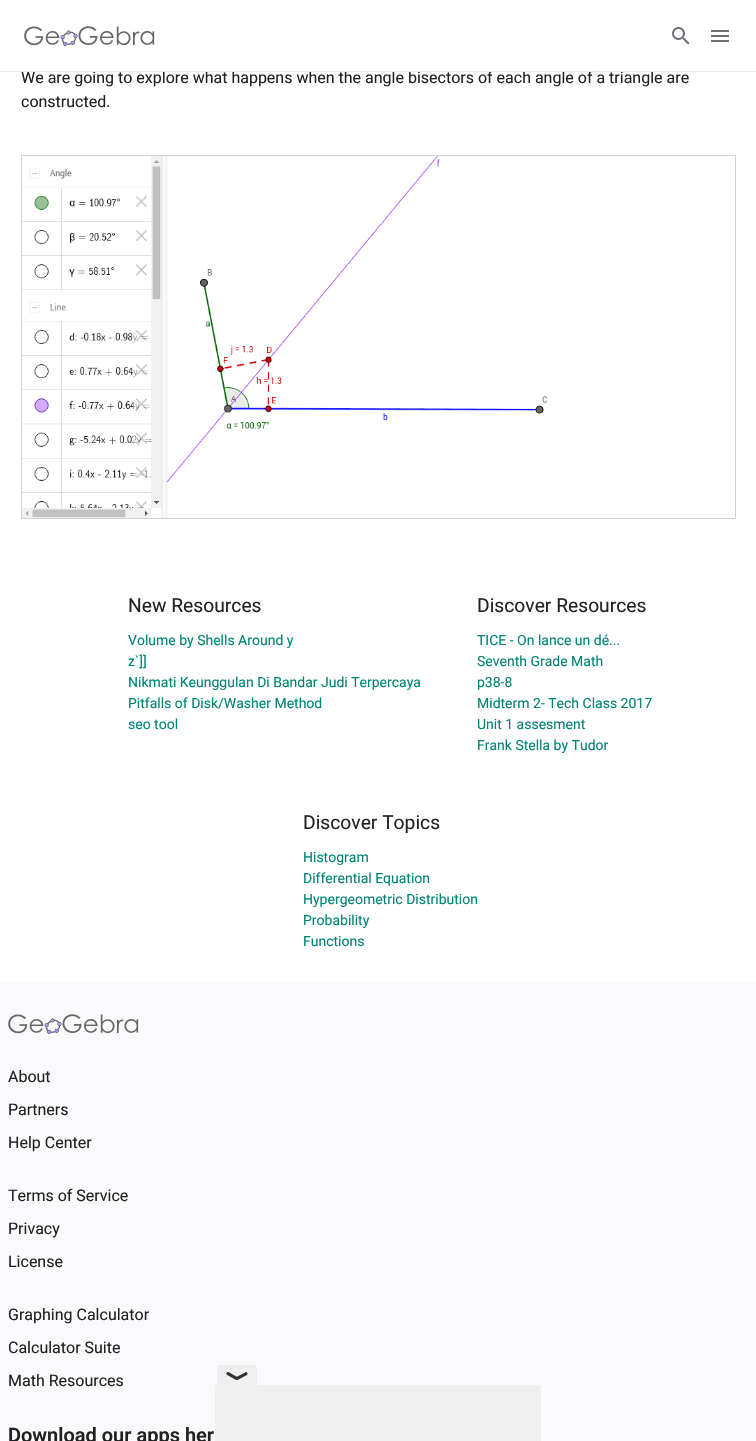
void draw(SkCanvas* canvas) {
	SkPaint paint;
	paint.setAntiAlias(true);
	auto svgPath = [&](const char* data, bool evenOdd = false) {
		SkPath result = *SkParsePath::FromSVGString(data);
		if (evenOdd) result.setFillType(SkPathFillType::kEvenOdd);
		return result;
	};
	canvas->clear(0xffffffff);
	SkFont f1(fontMgr->matchFamilyStyle("Roboto", SkFontStyle::Normal()), 16);
	f1.setSubpixel(true);
	paint.setColor(0xff212121);
	canvas->drawString("We are going to explore what happens when the angle bisectors of each angle of a triangle are", 21, 83, f1, paint);
	paint.setColor(0xffffffff);
	canvas->drawRect(SkRect::MakeXYWH(490, 70, 102, 1), paint);
	paint.setColor(0xffe6e6eb);
	canvas->drawRect(SkRect::MakeXYWH(0, 71, 756, 1), paint);
	canvas->drawImageRect(SkImages::DeferredFromEncodedData(SkData::MakeFromFileName("img1.png")), SkRect::MakeXYWH(24, 26, 131, 20), SkSamplingOptions());
	canvas->drawImageRect(SkImages::DeferredFromEncodedData(SkData::MakeFromFileName("img2.png")), SkRect::MakeXYWH(672, 27, 18, 18), SkSamplingOptions());
	canvas->drawImageRect(SkImages::DeferredFromEncodedData(SkData::MakeFromFileName("img3.png")), SkRect::MakeXYWH(711, 30, 18, 12), SkSamplingOptions());
	paint.setColor(0xff212121);
	canvas->drawString("constructed.", 21, 107, f1, paint);
	canvas->drawImageRect(SkImages::DeferredFromEncodedData(SkData::MakeFromFileName("img4.png")), SkRect::MakeXYWH(22, 156, 525, 362), SkSamplingOptions());
	paint.setStroke(true);
	paint.setStrokeWidth(1);
	paint.setColor(0xffd3d3d3);
	canvas->drawRect(SkRect::MakeXYWH(21.5, 155.5, 714, 363), paint);
	SkFont f2(fontMgr->matchFamilyStyle("Roboto", SkFontStyle::Normal()), 19.25);
	f2.setSubpixel(true);
	paint.setStroke(false);
	paint.setColor(0xff212121);
	canvas->drawString("New Resources", 128, 612, f2, paint);
	SkFont f3(fontMgr->matchFamilyStyle("Roboto", SkFontStyle::Normal()), 14);
	f3.setSubpixel(true);
	paint.setColor(0xff008475);
	canvas->drawString("Volume by Shells Around y", 128, 645, f3, paint);
	canvas->drawString("z`]]", 128, 666, f3, paint);
	canvas->drawString("Nikmati Keunggulan Di Bandar Judi Terpercaya", 128, 687, f3, paint);
	canvas->drawString("Pitfalls of Disk/Washer Method", 128, 708, f3, paint);
	canvas->drawString("seo tool", 128, 729, f3, paint);
	paint.setColor(0xff212121);
	canvas->drawString("Discover Resources", 477, 612, f2, paint);
	paint.setColor(0xff008475);
	canvas->drawString("TICE - On lance un dé...", 477, 645, f3, paint);
	canvas->drawString("Seventh Grade Math", 477, 666, f3, paint);
	canvas->drawString("p38-8", 477, 687, f3, paint);
	canvas->drawString("Midterm 2- Tech Class 2017", 477, 708, f3, paint);
	canvas->drawString("Unit 1 assesment", 477, 729, f3, paint);
	canvas->drawString("Frank Stella by Tudor", 477, 750, f3, paint);
	paint.setColor(0xff212121);
	canvas->drawString("Discover Topics", 303, 829, f2, paint);
	paint.setColor(0xff008475);
	canvas->drawString("Histogram", 303, 862, f3, paint);
	canvas->drawString("Differential Equation", 303, 883, f3, paint);
	canvas->drawString("Hypergeometric Distribution", 303, 904, f3, paint);
	canvas->drawString("Probability", 303, 925, f3, paint);
	canvas->drawString("Functions", 303, 946, f3, paint);
	paint.setColor(0xfffafafc);
	canvas->drawRect(SkRect::MakeXYWH(0, 982, 756, 459), paint);
	canvas->drawImageRect(SkImages::DeferredFromEncodedData(SkData::MakeFromFileName("img5.png")), SkRect::MakeXYWH(8, 1014, 131, 20), SkSamplingOptions());
	paint.setColor(0xff212121);
	canvas->drawString("About", 8, 1082, f1, paint);
	canvas->drawString("Partners", 8, 1115, f1, paint);
	canvas->drawString("Help Center", 8, 1148, f1, paint);
	canvas->drawString("Terms of Service", 8, 1201, f1, paint);
	canvas->drawString("Privacy", 8, 1234, f1, paint);
	canvas->drawString("License", 8, 1267, f1, paint);
	canvas->drawString("Graphing Calculator", 8, 1320, f1, paint);
	canvas->drawString("Calculator Suite", 8, 1353, f1, paint);
	canvas->drawString("Math Resources", 8, 1386, f1, paint);
	SkFont f4(fontMgr->matchFamilyStyle("Roboto", SkFontStyle(600, SkFontStyle::kNormal_Width, SkFontStyle::kUpright_Slant)), 20);
	f4.setSubpixel(true);
	canvas->drawString("Download our apps her", 8, 1442, f4, paint);
	paint.setColor(0xffefefef);
	canvas->drawPath(svgPath("M219 1365H255C256 1365 257 1366 257 1367V1385H217V1367C217 1366 218 1365 219 1365Z"), paint);
	paint.setColor(0xff313131);
	canvas->drawPath(svgPath("M228.5 1372L238 1377.5C238.5 1379 237 1380.5 236 1380L226.5 1374.5C225.5 1373 227.5 1371.5 228.5 1372Z"), paint);
	canvas->drawPath(svgPath("M236.5 1377L246 1372C247.5 1372 248 1374 247 1375L237.5 1380C236 1380 235.5 1378 236.5 1377Z"), paint);
	paint.setColor(0xffefefef);
	canvas->drawRect(SkRect::MakeXYWH(215, 1385, 326, 56), paint);
}
